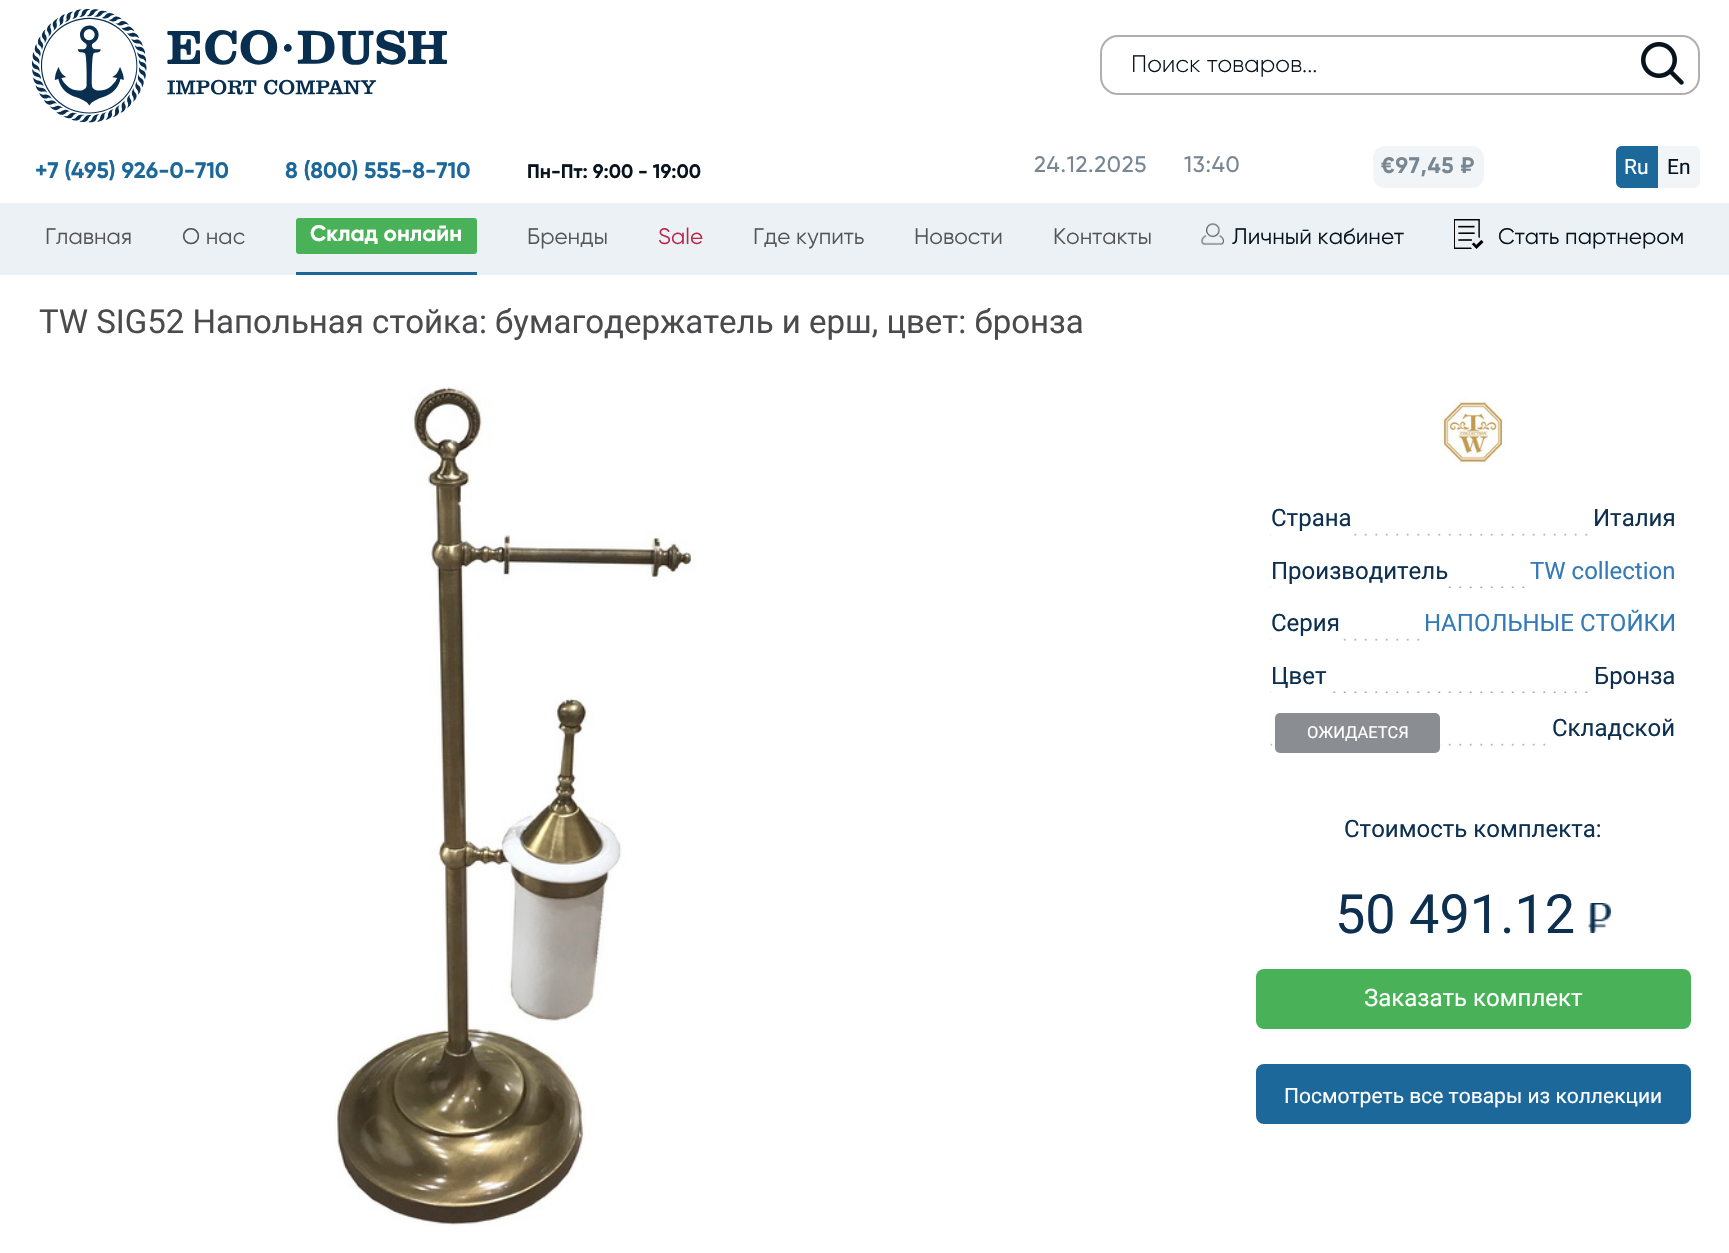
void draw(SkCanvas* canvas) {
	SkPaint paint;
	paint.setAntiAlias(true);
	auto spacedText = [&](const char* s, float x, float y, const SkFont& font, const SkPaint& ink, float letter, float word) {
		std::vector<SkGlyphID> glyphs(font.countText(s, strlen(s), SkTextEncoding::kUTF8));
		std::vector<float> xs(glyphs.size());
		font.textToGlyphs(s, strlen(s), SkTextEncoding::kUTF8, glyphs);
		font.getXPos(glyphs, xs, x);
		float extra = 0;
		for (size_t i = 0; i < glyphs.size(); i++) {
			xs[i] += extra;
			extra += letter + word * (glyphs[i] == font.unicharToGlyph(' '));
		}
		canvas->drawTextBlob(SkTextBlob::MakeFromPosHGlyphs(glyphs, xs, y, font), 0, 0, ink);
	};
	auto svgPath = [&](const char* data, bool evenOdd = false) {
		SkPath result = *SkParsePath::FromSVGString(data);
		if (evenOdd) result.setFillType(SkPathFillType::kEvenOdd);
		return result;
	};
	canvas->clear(0xffffffff);
	canvas->drawImageRect(SkImages::DeferredFromEncodedData(SkData::MakeFromFileName("img1.png")), SkRect::MakeXYWH(31, 9, 416, 114), SkSamplingOptions());
	paint.setStroke(true);
	paint.setStrokeWidth(2);
	paint.setColor(0xffafafaf);
	canvas->drawRoundRect(SkRect::MakeXYWH(1101, 36, 598, 58), 17, 17, paint);
	SkFont f1(fontMgr->matchFamilyStyle("Gilroy", SkFontStyle(300, SkFontStyle::kNormal_Width, SkFontStyle::kUpright_Slant)), 24);
	f1.setSubpixel(true);
	paint.setStroke(false);
	paint.setColor(0xff07141d);
	canvas->drawString("Поиск товаров...", 1131, 72, f1, paint);
	paint.setColor(0xffffffff);
	canvas->drawRoundRect(SkRect::MakeXYWH(1637, 38, 54, 54), 5, 5, paint);
	canvas->drawImageRect(SkImages::DeferredFromEncodedData(SkData::MakeFromFileName("img2.png")), SkRect::MakeXYWH(1641, 42, 43, 43), SkSamplingOptions());
	SkFont f2(fontMgr->matchFamilyStyle("Gilroy", SkFontStyle::Bold()), 22.5);
	f2.setSubpixel(true);
	paint.setColor(0xff1d689b);
	canvas->drawString("+7 (495) 926-0-710", 35, 178, f2, paint);
	canvas->drawString("8 (800) 555-8-710", 285, 178, f2, paint);
	SkFont f3(fontMgr->matchFamilyStyle("Gilroy", SkFontStyle::Bold()), 19.5);
	f3.setSubpixel(true);
	paint.setColor(0xff07141d);
	canvas->drawString("Пн-Пт: 9:00 - 19:00", 527, 178, f3, paint);
	SkFont f4(fontMgr->matchFamilyStyle("Gilroy", SkFontStyle(500, SkFontStyle::kNormal_Width, SkFontStyle::kUpright_Slant)), 22.5);
	f4.setSubpixel(true);
	paint.setColor(0xff778793);
	spacedText("24.12.2025", 1034, 172, f4, paint, 0.75, 0);
	spacedText("13:40", 1184, 172, f4, paint, 0.75, 0);
	paint.setColor(0xfff2f5f7);
	canvas->drawRoundRect(SkRect::MakeXYWH(1373, 146, 111, 42), 12, 12, paint);
	paint.setColor(0xff778793);
	spacedText("€97,45 ₽", 1381, 173, f2, paint, 0.75, 0);
	paint.setColor(0xff1d689b);
	canvas->drawPath(svgPath("M1622 146H1658V188H1622C1618.5 188 1616 185.5 1616 182V152C1616 148.5 1618.5 146 1622 146Z"), paint);
	SkFont f5(fontMgr->matchFamilyStyle("Roboto", SkFontStyle::Normal()), 21);
	f5.setSubpixel(true);
	paint.setColor(0xffffffff);
	canvas->drawString("Ru", 1624, 174, f5, paint);
	paint.setColor(0xfff2f5f7);
	canvas->drawPath(svgPath("M1658 146H1694C1697.5 146 1700 148.5 1700 152V182C1700 185.5 1697.5 188 1694 188H1658Z"), paint);
	paint.setColor(0xff07141d);
	canvas->drawString("En", 1667, 174, f5, paint);
	paint.setColor(0xffebf1f5);
	canvas->drawRect(SkRect::MakeXYWH(0, 203, 1729, 72), paint);
	SkFont f6(fontMgr->matchFamilyStyle("Gilroy", SkFontStyle::Normal()), 22.5);
	f6.setSubpixel(true);
	paint.setColor(0xff555555);
	canvas->drawString("Главная", 45, 244, f6, paint);
	canvas->drawString("О нас", 182, 244, f6, paint);
	paint.setColor(0xff1d689b);
	canvas->drawRect(SkRect::MakeXYWH(296, 272, 181, 3), paint);
	paint.setColor(0xff49b259);
	canvas->drawRoundRect(SkRect::MakeXYWH(296, 218, 181, 36), 3, 3, paint);
	paint.setColor(0xffffffff);
	canvas->drawString("Склад онлайн", 310, 241, f2, paint);
	paint.setColor(0xff555555);
	canvas->drawString("Бренды", 527, 244, f6, paint);
	paint.setColor(0xffbb2649);
	canvas->drawString("Sale", 658, 244, f6, paint);
	paint.setColor(0xff555555);
	canvas->drawString("Где купить", 753, 244, f6, paint);
	canvas->drawString("Новости", 914, 244, f6, paint);
	canvas->drawString("Контакты", 1053, 244, f6, paint);
	canvas->drawImageRect(SkImages::DeferredFromEncodedData(SkData::MakeFromFileName("img3.png")), SkRect::MakeXYWH(1201, 223, 23, 22), SkSamplingOptions());
	paint.setColor(0xff07141d);
	canvas->drawString("Личный кабинет", 1232, 244, f6, paint);
	canvas->drawImageRect(SkImages::DeferredFromEncodedData(SkData::MakeFromFileName("img4.png")), SkRect::MakeXYWH(1454, 219, 30, 30), SkSamplingOptions());
	canvas->drawString("Стать партнером", 1498, 244, f6, paint);
	SkFont f7(fontMgr->matchFamilyStyle("Roboto", SkFontStyle::Normal()), 33);
	f7.setSubpixel(true);
	paint.setColor(0xff4b4a4d);
	canvas->drawString("TW SIG52 Напольная стойка: бумагодержатель и ерш, цвет: бронза", 39, 333, f7, paint);
	canvas->drawImageRect(SkImages::DeferredFromEncodedData(SkData::MakeFromFileName("img5.png")), SkRect::MakeXYWH(334, 387, 363, 839), SkSamplingOptions());
	canvas->drawImageRect(SkImages::DeferredFromEncodedData(SkData::MakeFromFileName("img6.png")), SkRect::MakeXYWH(1440, 398, 65, 68), SkSamplingOptions());
	canvas->drawImageRect(SkImages::DeferredFromEncodedData(SkData::MakeFromFileName("img7.png")), SkRect::MakeXYWH(1270, 533, 318, 3), SkSamplingOptions());
	paint.setColor(0xffffffff);
	canvas->drawRect(SkRect::MakeXYWH(1271, 533, 75, 3), paint);
	SkFont f8(fontMgr->matchFamilyStyle("Roboto", SkFontStyle::Normal()), 24);
	f8.setSubpixel(true);
	paint.setColor(0xff0d3051);
	canvas->drawString("Страна", 1271, 526, f8, paint);
	canvas->drawString("Италия", 1593, 526, f8, paint);
	canvas->drawImageRect(SkImages::DeferredFromEncodedData(SkData::MakeFromFileName("img8.png")), SkRect::MakeXYWH(1270, 586, 255, 2), SkSamplingOptions());
	paint.setColor(0xffffffff);
	canvas->drawRect(SkRect::MakeXYWH(1271, 586, 170, 2), paint);
	paint.setColor(0xff0d3051);
	canvas->drawString("Производитель", 1271, 579, f8, paint);
	paint.setColor(0xff337ab7);
	canvas->drawString("TW collection", 1530, 579, f8, paint);
	canvas->drawImageRect(SkImages::DeferredFromEncodedData(SkData::MakeFromFileName("img9.png")), SkRect::MakeXYWH(1270, 638, 150, 3), SkSamplingOptions());
	paint.setColor(0xffffffff);
	canvas->drawRect(SkRect::MakeXYWH(1271, 638, 65, 3), paint);
	paint.setColor(0xff0d3051);
	canvas->drawString("Серия", 1271, 631, f8, paint);
	paint.setColor(0xff337ab7);
	canvas->drawString("НАПОЛЬНЫЕ СТОЙКИ", 1424, 631, f8, paint);
	canvas->drawImageRect(SkImages::DeferredFromEncodedData(SkData::MakeFromFileName("img10.png")), SkRect::MakeXYWH(1270, 691, 318, 2), SkSamplingOptions());
	paint.setColor(0xffffffff);
	canvas->drawRect(SkRect::MakeXYWH(1271, 691, 54, 2), paint);
	paint.setColor(0xff0d3051);
	canvas->drawString("Цвет", 1271, 684, f8, paint);
	canvas->drawString("Бронза", 1594, 684, f8, paint);
	canvas->drawImageRect(SkImages::DeferredFromEncodedData(SkData::MakeFromFileName("img11.png")), SkRect::MakeXYWH(1270, 743, 276, 3), SkSamplingOptions());
	paint.setColor(0xff8a8e93);
	canvas->drawRoundRect(SkRect::MakeXYWH(1275, 713, 165, 40), 5, 5, paint);
	SkFont f9(fontMgr->matchFamilyStyle("Roboto", SkFontStyle::Normal()), 16.5);
	f9.setSubpixel(true);
	paint.setColor(0xffffffff);
	canvas->drawString("ОЖИДАЕТСЯ", 1307, 738, f9, paint);
	paint.setColor(0xff0d3051);
	canvas->drawString("Складской", 1552, 736, f8, paint);
	canvas->drawString("Стоимость комплекта:", 1344, 837, f8, paint);
	SkFont f10(fontMgr->matchFamilyStyle("Roboto", SkFontStyle::Normal()), 54);
	f10.setSubpixel(true);
	canvas->drawString("50 491.12", 1335, 933, f10, paint);
	canvas->drawImageRect(SkImages::DeferredFromEncodedData(SkData::MakeFromFileName("img12.png")), SkRect::MakeXYWH(1588, 903, 23, 30), SkSamplingOptions());
	paint.setColor(0xff49b259);
	canvas->drawRoundRect(SkRect::MakeXYWH(1256, 969, 435, 60), 8, 8, paint);
	paint.setColor(0xffffffff);
	canvas->drawString("Заказать комплект", 1364, 1006, f8, paint);
	paint.setColor(0xff1d689b);
	canvas->drawRoundRect(SkRect::MakeXYWH(1257, 1065, 433, 58), 7, 7, paint);
	paint.setStroke(true);
	canvas->drawRoundRect(SkRect::MakeXYWH(1257, 1065, 433, 58), 7, 7, paint);
	paint.setStroke(false);
	paint.setColor(0xffffffff);
	canvas->drawString("Посмотреть все товары из коллекции", 1284, 1103, f5, paint);
}
